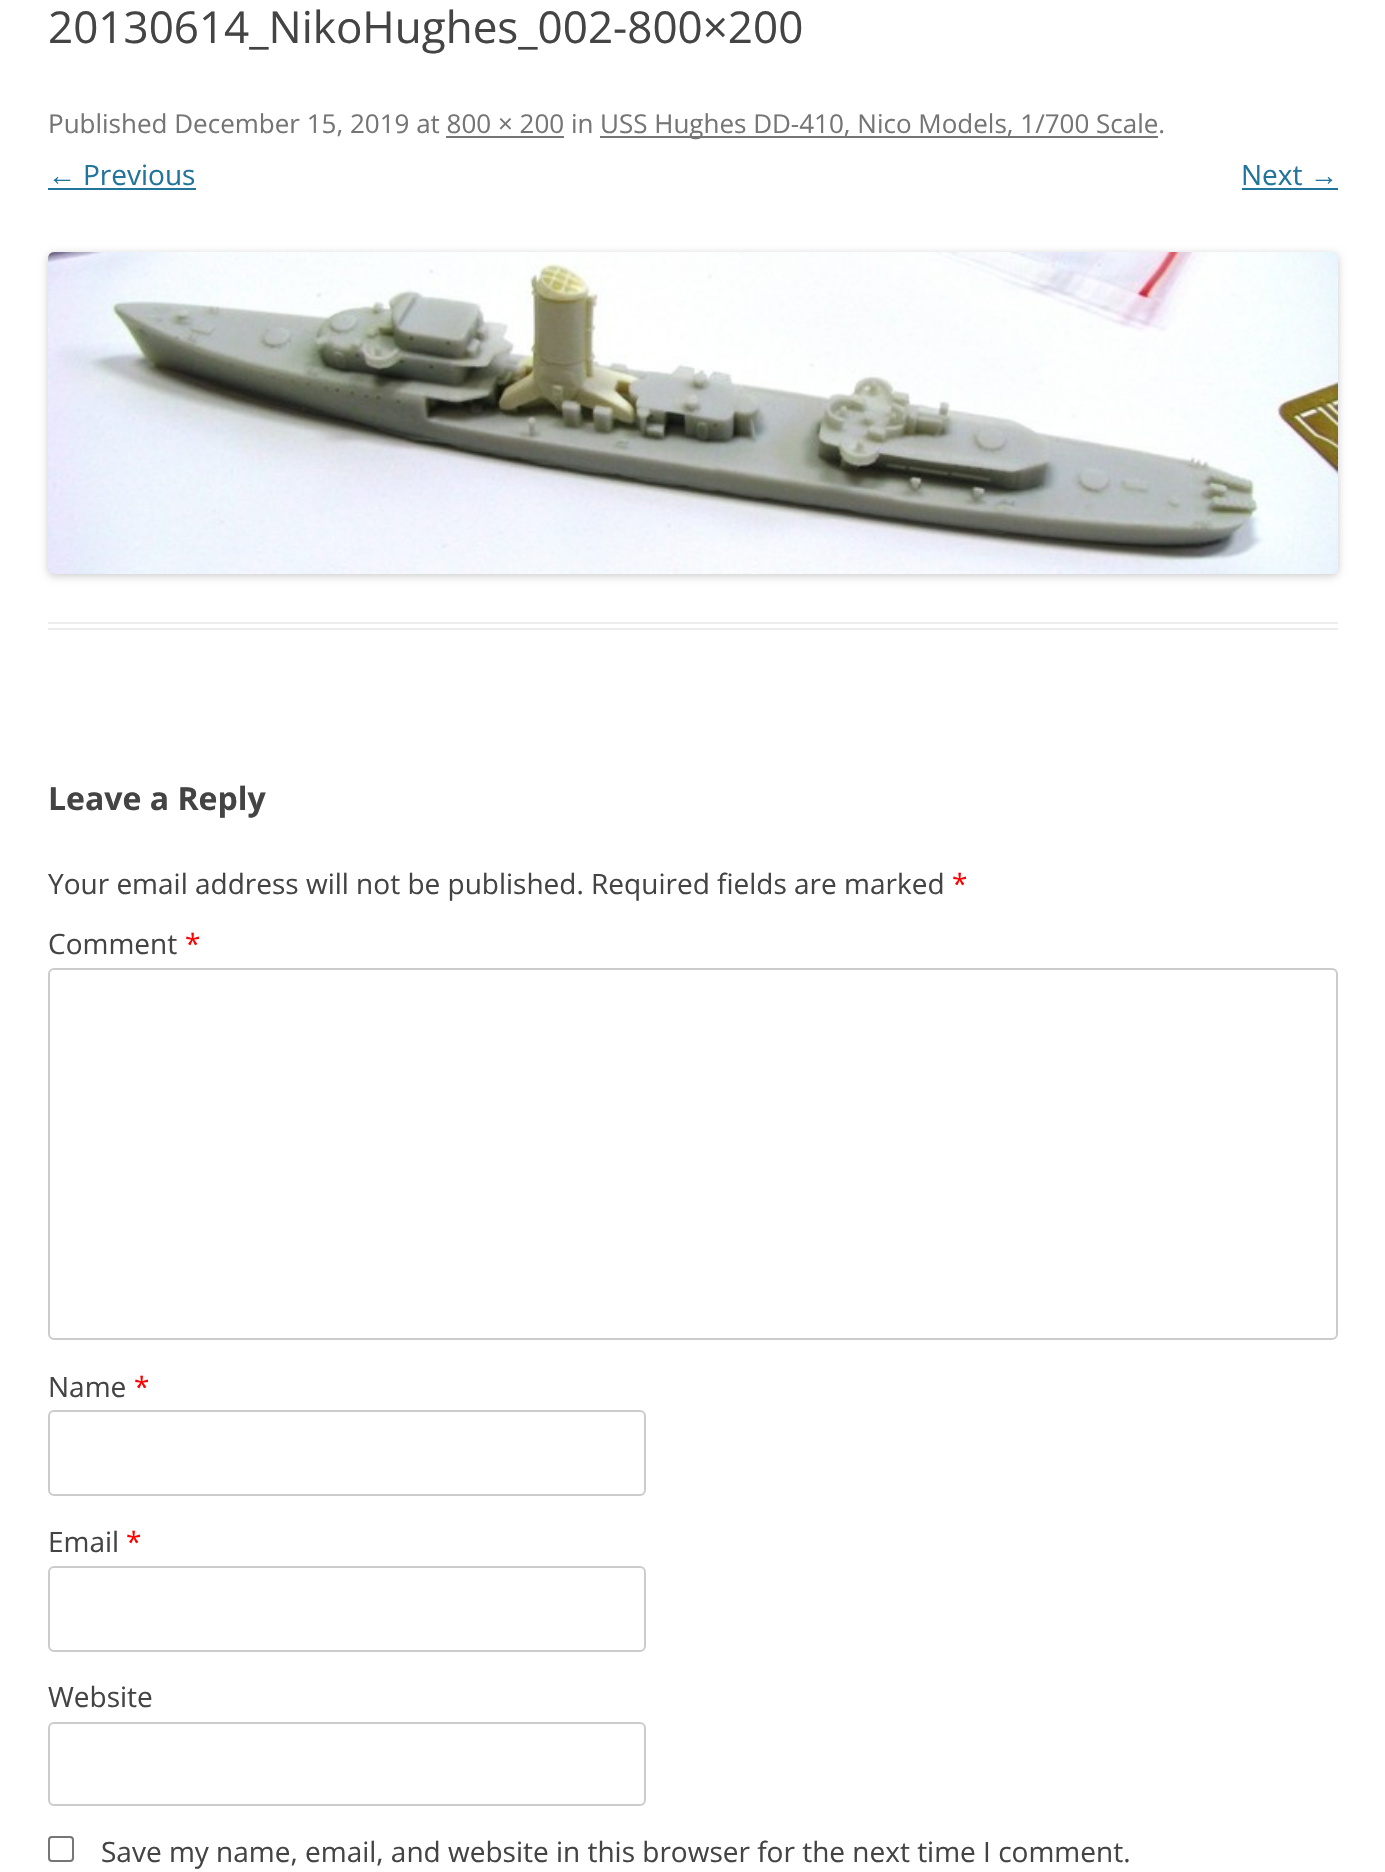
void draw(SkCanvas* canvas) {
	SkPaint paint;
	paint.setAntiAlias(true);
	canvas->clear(0xffffffff);
	paint.setColor(0xffededed);
	canvas->drawRect(SkRect::MakeXYWH(48, 622, 1290, 2), paint);
	canvas->drawRect(SkRect::MakeXYWH(48, 628, 1290, 2), paint);
	SkFont f1(fontMgr->matchFamilyStyle("Open Sans", SkFontStyle::Normal()), 44);
	f1.setSubpixel(true);
	paint.setColor(0xff444444);
	canvas->drawString("20130614_NikoHughes_002-800×200", 48, 43, f1, paint);
	SkFont f2(fontMgr->matchFamilyStyle("Open Sans", SkFontStyle::Normal()), 26);
	f2.setSubpixel(true);
	paint.setColor(0xff757575);
	canvas->drawString("Published December 15, 2019 at 800 × 200 in", 48, 133, f2, paint);
	canvas->drawRect(SkRect::MakeXYWH(600, 136, 558, 2), paint);
	canvas->drawString("USS Hughes DD-410, Nico Models, 1/700 Scale.", 600, 133, f2, paint);
	canvas->drawRect(SkRect::MakeXYWH(446, 136, 118, 2), paint);
	SkFont f3(fontMgr->matchFamilyStyle("Liberation Sans", SkFontStyle::Normal()), 28);
	f3.setSubpixel(true);
	paint.setColor(0xff21759b);
	canvas->drawString("←", 48, 185, f3, paint);
	canvas->drawRect(SkRect::MakeXYWH(48, 188, 148, 2), paint);
	SkFont f4(fontMgr->matchFamilyStyle("Open Sans", SkFontStyle::Normal()), 28);
	f4.setSubpixel(true);
	canvas->drawString("Previous", 83, 185, f4, paint);
	canvas->drawString("Next", 1241, 185, f4, paint);
	canvas->drawString("→", 1310, 185, f3, paint);
	canvas->drawRect(SkRect::MakeXYWH(1242, 188, 96, 2), paint);
	paint.setColor(0x33000000);
	paint.setMaskFilter(SkMaskFilter::MakeBlur(kNormal_SkBlurStyle, 4));
	canvas->drawRoundRect(SkRect::MakeXYWH(48, 254, 1290, 322), 6, 6, paint);
	paint.setMaskFilter(nullptr);
	canvas->drawImageRect(SkImages::DeferredFromEncodedData(SkData::MakeFromFileName("img1.png")), SkRect::MakeXYWH(48, 252, 1290, 322), SkSamplingOptions());
	SkFont f5(fontMgr->matchFamilyStyle("Open Sans", SkFontStyle::Bold()), 32);
	f5.setSubpixel(true);
	paint.setColor(0xff444444);
	canvas->drawString("Leave a Reply", 48, 810, f5, paint);
	canvas->drawString("Your email address will not be published. Required fields are marked", 48, 894, f4, paint);
	paint.setColor(0xffff0000);
	canvas->drawString("*", 952, 894, f4, paint);
	paint.setColor(0xff444444);
	canvas->drawString("Comment", 48, 954, f4, paint);
	paint.setColor(0xffff0000);
	canvas->drawString("*", 185, 954, f4, paint);
	paint.setStroke(true);
	paint.setStrokeWidth(2);
	paint.setColor(0xffcccccc);
	canvas->drawRoundRect(SkRect::MakeXYWH(49, 969, 1288, 370), 5, 5, paint);
	paint.setStroke(false);
	paint.setColor(0xff444444);
	canvas->drawString("Name", 48, 1397, f4, paint);
	paint.setColor(0xffff0000);
	canvas->drawString("*", 134, 1397, f4, paint);
	paint.setStroke(true);
	paint.setColor(0xffcccccc);
	canvas->drawRoundRect(SkRect::MakeXYWH(49, 1411, 596, 84), 5, 5, paint);
	paint.setStroke(false);
	paint.setColor(0xff444444);
	canvas->drawString("Email", 48, 1552, f4, paint);
	paint.setColor(0xffff0000);
	canvas->drawString("*", 126, 1552, f4, paint);
	paint.setStroke(true);
	paint.setColor(0xffcccccc);
	canvas->drawRoundRect(SkRect::MakeXYWH(49, 1567, 596, 84), 5, 5, paint);
	paint.setStroke(false);
	paint.setColor(0xff444444);
	canvas->drawString("Website", 48, 1707, f4, paint);
	paint.setStroke(true);
	paint.setColor(0xffcccccc);
	canvas->drawRoundRect(SkRect::MakeXYWH(49, 1723, 596, 82), 5, 5, paint);
	paint.setColor(0xff767676);
	canvas->drawRoundRect(SkRect::MakeXYWH(49, 1837, 24, 24), 3, 3, paint);
	paint.setStroke(false);
	paint.setColor(0xff444444);
	canvas->drawString("Save my name, email, and website in this browser for the next time I comment.", 101, 1862, f4, paint);
}
